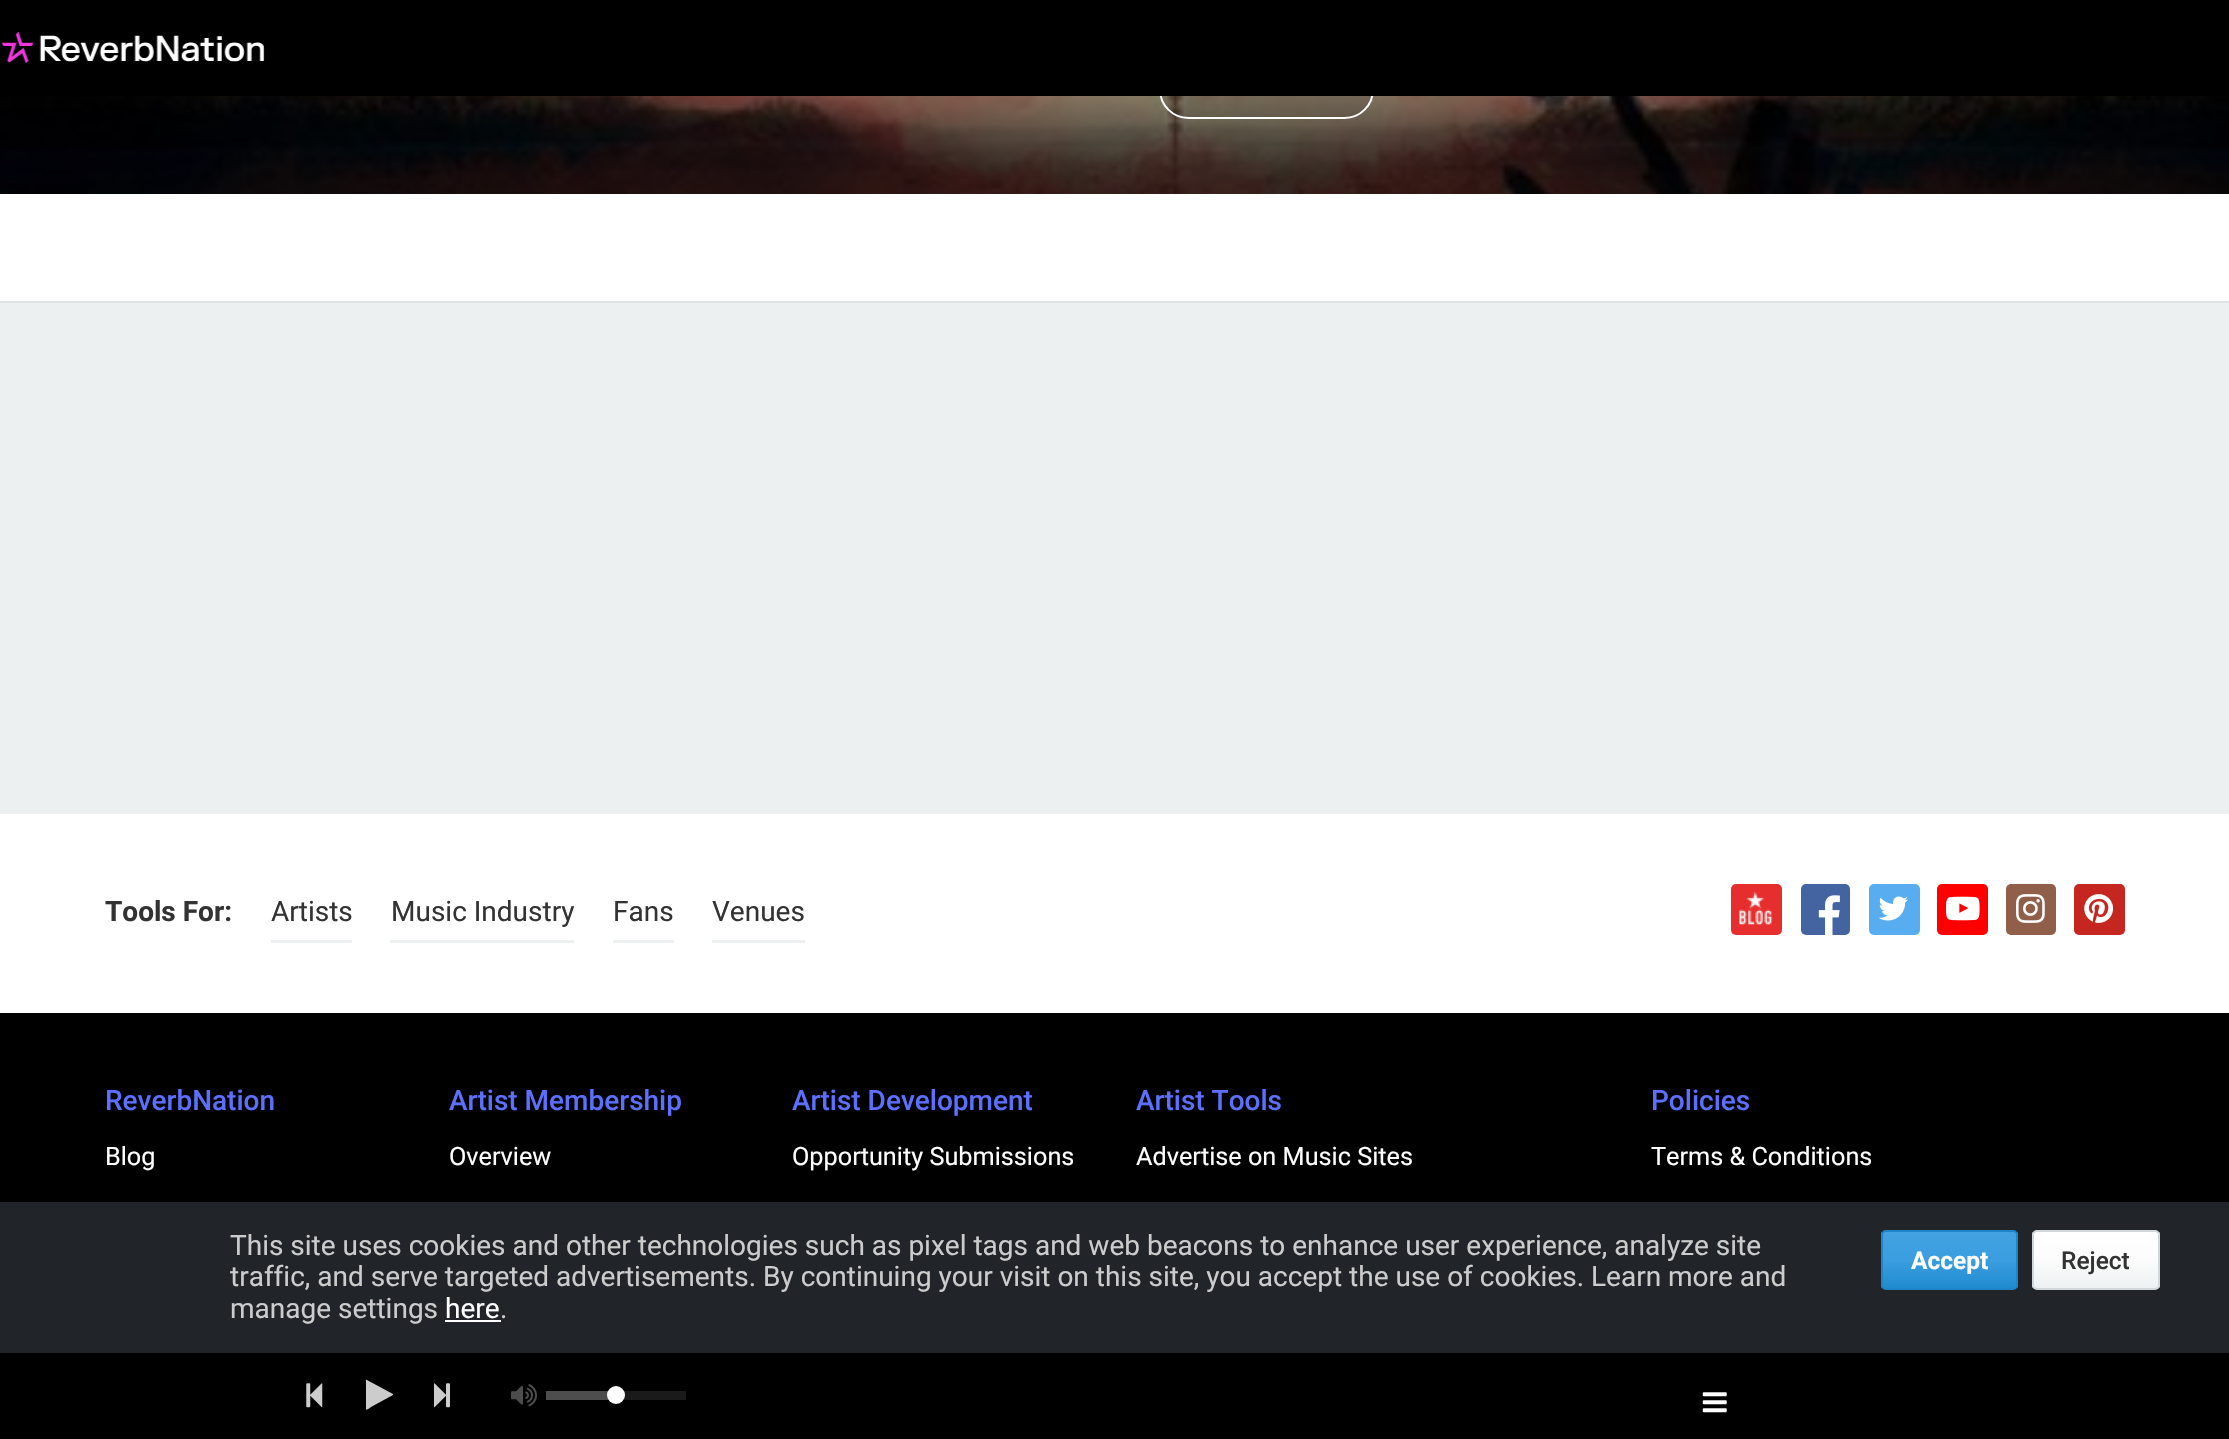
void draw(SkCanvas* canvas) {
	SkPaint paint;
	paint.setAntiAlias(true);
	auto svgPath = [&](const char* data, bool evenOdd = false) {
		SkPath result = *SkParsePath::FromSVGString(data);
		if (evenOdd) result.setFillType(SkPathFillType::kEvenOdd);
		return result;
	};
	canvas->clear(0xffedf0f1);
	canvas->drawImageRect(SkImages::DeferredFromEncodedData(SkData::MakeFromFileName("img2.png")), SkRect::MakeXYWH(0, 96, 2229, 98), SkSamplingOptions());
	paint.setColor(0x1a000000);
	canvas->drawRoundRect(SkRect::MakeXYWH(1160, 61, 213, 57), 28.5, 28.5, paint);
	paint.setStroke(true);
	paint.setStrokeWidth(2);
	paint.setColor(0xffffffff);
	canvas->drawRoundRect(SkRect::MakeXYWH(1160, 61, 213, 57), 28.5, 28.5, paint);
	paint.setStroke(false);
	paint.setColor(0xff000000);
	canvas->drawRect(SkRect::MakeXYWH(0, 0, 2229, 96), paint);
	canvas->drawImageRect(SkImages::DeferredFromEncodedData(SkData::MakeFromFileName("img1.png")), SkRect::MakeXYWH(1, 31, 264, 32), SkSamplingOptions());
	paint.setColor(0xffdfe4e6);
	canvas->drawPath(svgPath("M0 301V303H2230V198V301Z"), paint);
	paint.setColor(0xffffffff);
	canvas->drawRect(SkRect::MakeXYWH(0, 194, 2229, 107), paint);
	canvas->drawRect(SkRect::MakeXYWH(0, 814, 2229, 199), paint);
	SkFont f1(fontMgr->matchFamilyStyle("Roboto", SkFontStyle::Bold()), 28);
	f1.setSubpixel(true);
	paint.setColor(0xff333333);
	canvas->drawString("Tools For:", 105, 921, f1, paint);
	paint.setColor(0xffedf0f1);
	canvas->drawRect(SkRect::MakeXYWH(271, 940, 81, 3), paint);
	SkFont f2(fontMgr->matchFamilyStyle("Roboto", SkFontStyle::Normal()), 28);
	f2.setSubpixel(true);
	paint.setColor(0xff333333);
	canvas->drawString("Artists", 271, 921, f2, paint);
	paint.setColor(0xffedf0f1);
	canvas->drawRect(SkRect::MakeXYWH(390, 940, 184, 3), paint);
	paint.setColor(0xff333333);
	canvas->drawString("Music Industry", 391, 921, f2, paint);
	paint.setColor(0xffedf0f1);
	canvas->drawRect(SkRect::MakeXYWH(613, 940, 61, 3), paint);
	paint.setColor(0xff333333);
	canvas->drawString("Fans", 613, 921, f2, paint);
	paint.setColor(0xffedf0f1);
	canvas->drawRect(SkRect::MakeXYWH(712, 940, 93, 3), paint);
	paint.setColor(0xff333333);
	canvas->drawString("Venues", 712, 921, f2, paint);
	paint.setColor(0xffe72e2e);
	canvas->drawRoundRect(SkRect::MakeXYWH(1731, 884, 51, 51), 5, 5, paint);
	canvas->drawImageRect(SkImages::DeferredFromEncodedData(SkData::MakeFromFileName("img3.png")), SkRect::MakeXYWH(1739, 892, 33, 33), SkSamplingOptions());
	paint.setColor(0xff4463a1);
	canvas->drawRoundRect(SkRect::MakeXYWH(1801, 884, 49, 51), 5, 5, paint);
	canvas->drawImageRect(SkImages::DeferredFromEncodedData(SkData::MakeFromFileName("img4.png")), SkRect::MakeXYWH(1818, 895, 22, 40), SkSamplingOptions());
	paint.setColor(0xff58adf0);
	canvas->drawRoundRect(SkRect::MakeXYWH(1869, 884, 51, 51), 5, 5, paint);
	canvas->drawImageRect(SkImages::DeferredFromEncodedData(SkData::MakeFromFileName("img5.png")), SkRect::MakeXYWH(1878, 896, 30, 25), SkSamplingOptions());
	paint.setColor(0xffff0000);
	canvas->drawRoundRect(SkRect::MakeXYWH(1937, 884, 51, 51), 5, 5, paint);
	canvas->drawImageRect(SkImages::DeferredFromEncodedData(SkData::MakeFromFileName("img6.png")), SkRect::MakeXYWH(1946, 896, 34, 25), SkSamplingOptions());
	paint.setColor(0xff905f4a);
	canvas->drawRoundRect(SkRect::MakeXYWH(2006, 884, 50, 51), 5, 5, paint);
	canvas->drawImageRect(SkImages::DeferredFromEncodedData(SkData::MakeFromFileName("img7.png")), SkRect::MakeXYWH(2016, 894, 29, 29), SkSamplingOptions());
	paint.setColor(0xffc5261f);
	canvas->drawRoundRect(SkRect::MakeXYWH(2074, 884, 51, 51), 5, 5, paint);
	canvas->drawImageRect(SkImages::DeferredFromEncodedData(SkData::MakeFromFileName("img8.png")), SkRect::MakeXYWH(2084, 894, 30, 29), SkSamplingOptions());
	paint.setColor(0xff000000);
	canvas->drawRect(SkRect::MakeXYWH(0, 1013, 2229, 189), paint);
	SkFont f3(fontMgr->matchFamilyStyle("Roboto", SkFontStyle(500, SkFontStyle::kNormal_Width, SkFontStyle::kUpright_Slant)), 28);
	f3.setSubpixel(true);
	paint.setColor(0xff5c6fff);
	canvas->drawString("ReverbNation", 105, 1110, f3, paint);
	SkFont f4(fontMgr->matchFamilyStyle("Roboto", SkFontStyle::Normal()), 25.25);
	f4.setSubpixel(true);
	paint.setColor(0xffffffff);
	canvas->drawString("Blog", 105, 1165, f4, paint);
	paint.setColor(0xff5c6fff);
	canvas->drawString("Artist Membership", 449, 1110, f3, paint);
	paint.setColor(0xffffffff);
	canvas->drawString("Overview", 449, 1165, f4, paint);
	paint.setColor(0xff5c6fff);
	canvas->drawString("Artist Development", 792, 1110, f3, paint);
	paint.setColor(0xffffffff);
	canvas->drawString("Opportunity Submissions", 792, 1165, f4, paint);
	paint.setColor(0xff5c6fff);
	canvas->drawString("Artist Tools", 1136, 1110, f3, paint);
	paint.setColor(0xffffffff);
	canvas->drawString("Advertise on Music Sites", 1136, 1165, f4, paint);
	paint.setColor(0xff5c6fff);
	canvas->drawString("Policies", 1651, 1110, f3, paint);
	paint.setColor(0xffffffff);
	canvas->drawString("Terms & Conditions", 1651, 1165, f4, paint);
	paint.setColor(0xff212529);
	canvas->drawRect(SkRect::MakeXYWH(0, 1202, 2229, 151), paint);
	paint.setColor(0xffcccccc);
	canvas->drawString("This site uses cookies and other technologies such as pixel tags and web beacons to enhance user experience, analyze site", 230, 1255, f2, paint);
	canvas->drawString("traffic, and serve targeted advertisements. By continuing your visit on this site, you accept the use of cookies. Learn more and", 230, 1286, f2, paint);
	canvas->drawString("manage settings", 230, 1318, f2, paint);
	paint.setColor(0xffffffff);
	canvas->drawString("here", 445, 1318, f2, paint);
	canvas->drawRect(SkRect::MakeXYWH(445, 1320, 56, 2), paint);
	paint.setColor(0xffcccccc);
	canvas->drawString(".", 500, 1318, f2, paint);
	canvas->save();
	canvas->clipPath(svgPath("M1886 1230H2013C2016 1230 2018 1232 2018 1235V1285C2018 1288 2016 1290 2013 1290H1886C1883 1290 1881 1288 1881 1285V1235C1881 1232 1883 1230 1886 1230Z"), true);
	{
		const SkColor colors[] = {0xff43a2e1, 0xff3a9ee0, 0xff218bd0};
		const float stops[] = {0, 0.5, 1};
		const SkPoint ends[] = {{1950, 1232}, {1950, 1288}};
		paint.setShader(SkGradientShader::MakeLinear(ends, colors, stops, 3, SkTileMode::kClamp));
		paint.setAlpha(255);
	}
	canvas->drawRect(SkRect::MakeXYWH(1881, 1232, 137, 56), paint);
	canvas->restore();
	paint.setStroke(true);
	paint.setShader(nullptr);
	paint.setColor(0xff1f85c8);
	canvas->drawRoundRect(SkRect::MakeXYWH(1882, 1231, 135, 58), 4, 4, paint);
	SkFont f5(fontMgr->matchFamilyStyle("Roboto", SkFontStyle::Bold()), 24.5);
	f5.setSubpixel(true);
	paint.setStroke(false);
	paint.setColor(0xffffffff);
	canvas->drawString("Accept", 1911, 1269, f5, paint);
	canvas->save();
	canvas->clipPath(svgPath("M2037 1230H2155C2158 1230 2160 1232 2160 1235V1285C2160 1288 2158 1290 2155 1290H2037C2034 1290 2032 1288 2032 1285V1235C2032 1232 2034 1230 2037 1230Z"), true);
	{
		const SkColor colors[] = {0xffffffff, 0xfffcfcfc, 0xffedf1f2};
		const float stops[] = {0, 0.5, 1};
		const SkPoint ends[] = {{2096, 1232}, {2096, 1288}};
		paint.setShader(SkGradientShader::MakeLinear(ends, colors, stops, 3, SkTileMode::kClamp));
		paint.setAlpha(255);
	}
	canvas->drawRect(SkRect::MakeXYWH(2032, 1232, 128, 56), paint);
	canvas->restore();
	paint.setStroke(true);
	paint.setShader(nullptr);
	paint.setColor(0xffd0d8db);
	canvas->drawRoundRect(SkRect::MakeXYWH(2033, 1231, 126, 58), 4, 4, paint);
	SkFont f6(fontMgr->matchFamilyStyle("Roboto", SkFontStyle(500, SkFontStyle::kNormal_Width, SkFontStyle::kUpright_Slant)), 24.5);
	f6.setSubpixel(true);
	paint.setStroke(false);
	paint.setColor(0xff333333);
	canvas->drawString("Reject", 2061, 1269, f6, paint);
	paint.setColor(0xff000000);
	canvas->drawRect(SkRect::MakeXYWH(0, 1353, 2229, 86), paint);
	canvas->drawImageRect(SkImages::DeferredFromEncodedData(SkData::MakeFromFileName("img9.png")), SkRect::MakeXYWH(306, 1383, 17, 25), SkSamplingOptions());
	paint.setColor(0xffcccccc);
	canvas->drawPath(svgPath("M393 1395L371 1407C370.5 1407.5 366.5 1410.5 366 1409.5V1380V1379.5L393 1394V1394.5Z"), paint);
	canvas->drawImageRect(SkImages::DeferredFromEncodedData(SkData::MakeFromFileName("img10.png")), SkRect::MakeXYWH(434, 1383, 16, 25), SkSamplingOptions());
	paint.setColor(0xff1a1a1a);
	canvas->drawRect(SkRect::MakeXYWH(623, 1391, 63, 9), paint);
	canvas->drawImageRect(SkImages::DeferredFromEncodedData(SkData::MakeFromFileName("img11.png")), SkRect::MakeXYWH(511, 1384, 26, 23), SkSamplingOptions());
	paint.setColor(0xff4d4d4d);
	canvas->drawRect(SkRect::MakeXYWH(546, 1391, 63, 9), paint);
	paint.setColor(0xffffffff);
	canvas->drawCircle(616, 1395, 9, paint);
	canvas->drawImageRect(SkImages::DeferredFromEncodedData(SkData::MakeFromFileName("img12.png")), SkRect::MakeXYWH(1702, 1392, 25, 21), SkSamplingOptions());
}
